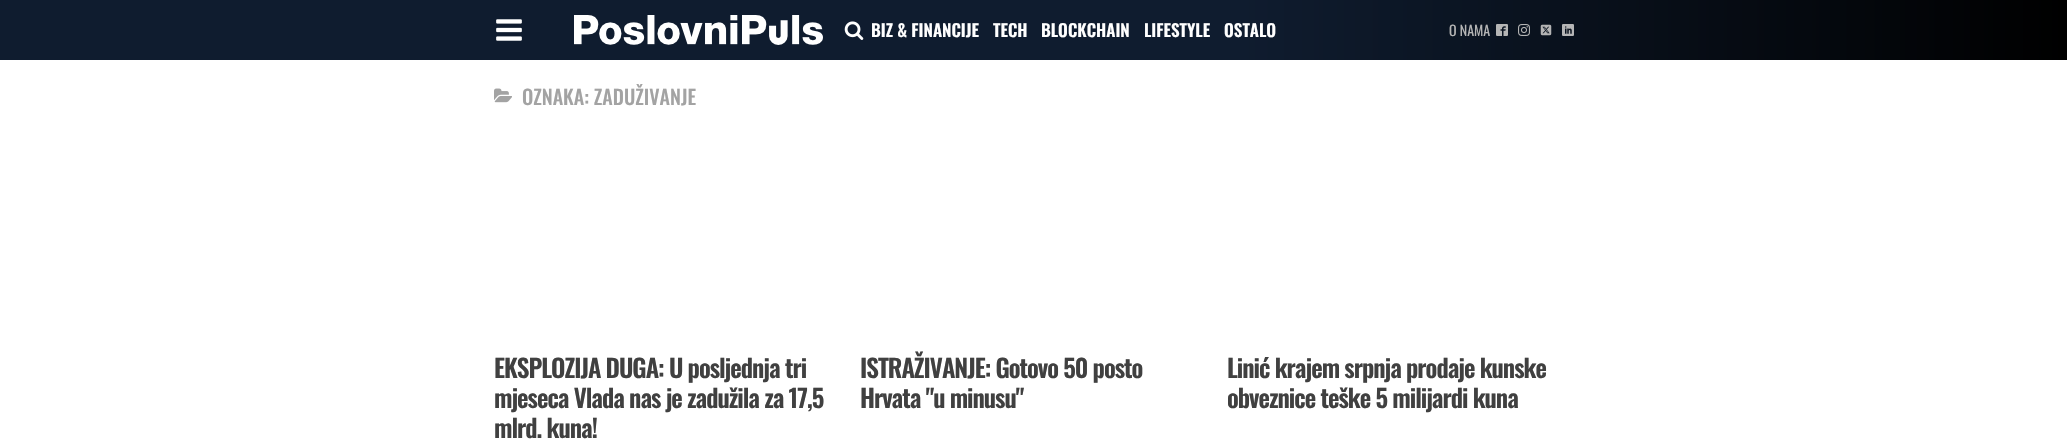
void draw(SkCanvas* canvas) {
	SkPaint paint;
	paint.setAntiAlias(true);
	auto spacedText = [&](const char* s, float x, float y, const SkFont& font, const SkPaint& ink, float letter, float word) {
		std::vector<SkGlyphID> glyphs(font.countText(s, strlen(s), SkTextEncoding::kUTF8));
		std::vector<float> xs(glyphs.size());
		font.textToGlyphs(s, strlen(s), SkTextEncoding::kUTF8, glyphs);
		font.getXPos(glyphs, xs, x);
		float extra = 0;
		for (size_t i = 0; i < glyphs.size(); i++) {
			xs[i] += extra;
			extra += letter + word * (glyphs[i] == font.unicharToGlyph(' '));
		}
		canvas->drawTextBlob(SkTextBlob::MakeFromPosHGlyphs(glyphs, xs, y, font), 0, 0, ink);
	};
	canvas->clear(0xffffffff);
	{
		const SkColor colors[] = {0xff0f1c2f, 0xff000000};
		const float stops[] = {0.6, 1};
		const SkPoint ends[] = {{0, 30}, {2067, 30}};
		paint.setShader(SkGradientShader::MakeLinear(ends, colors, stops, 2, SkTileMode::kClamp));
		paint.setAlpha(255);
	}
	canvas->drawRect(SkRect::MakeXYWH(0, 0, 2067, 60), paint);
	canvas->drawImageRect(SkImages::DeferredFromEncodedData(SkData::MakeFromFileName("img1.png")), SkRect::MakeXYWH(496, 19, 26, 22), SkSamplingOptions());
	canvas->drawImageRect(SkImages::DeferredFromEncodedData(SkData::MakeFromFileName("img2.png")), SkRect::MakeXYWH(574, 15, 249, 30), SkSamplingOptions());
	canvas->drawImageRect(SkImages::DeferredFromEncodedData(SkData::MakeFromFileName("img3.png")), SkRect::MakeXYWH(844, 21, 20, 19), SkSamplingOptions());
	SkFont f1(fontMgr->matchFamilyStyle("Oswald", SkFontStyle(600, SkFontStyle::kNormal_Width, SkFontStyle::kUpright_Slant)), 17);
	f1.setSubpixel(true);
	paint.setShader(nullptr);
	paint.setColor(0xffffffff);
	canvas->drawString("BIZ & FINANCIJE", 871, 37, f1, paint);
	canvas->drawString("TECH", 993, 37, f1, paint);
	canvas->drawString("BLOCKCHAIN", 1041, 37, f1, paint);
	canvas->drawString("LIFESTYLE", 1144, 37, f1, paint);
	canvas->drawString("OSTALO", 1224, 37, f1, paint);
	SkFont f2(fontMgr->matchFamilyStyle("Oswald", SkFontStyle::Normal()), 14);
	f2.setSubpixel(true);
	paint.setColor(0xffb5b5b5);
	canvas->drawString("O NAMA", 1449, 36, f2, paint);
	canvas->drawImageRect(SkImages::DeferredFromEncodedData(SkData::MakeFromFileName("img4.png")), SkRect::MakeXYWH(1496, 24, 12, 12), SkSamplingOptions());
	canvas->drawImageRect(SkImages::DeferredFromEncodedData(SkData::MakeFromFileName("img5.png")), SkRect::MakeXYWH(1518, 24, 12, 12), SkSamplingOptions());
	canvas->drawImageRect(SkImages::DeferredFromEncodedData(SkData::MakeFromFileName("img6.png")), SkRect::MakeXYWH(1540, 24, 12, 12), SkSamplingOptions());
	canvas->drawImageRect(SkImages::DeferredFromEncodedData(SkData::MakeFromFileName("img7.png")), SkRect::MakeXYWH(1562, 24, 12, 12), SkSamplingOptions());
	canvas->drawImageRect(SkImages::DeferredFromEncodedData(SkData::MakeFromFileName("img8.png")), SkRect::MakeXYWH(494, 88, 18, 15), SkSamplingOptions());
	SkFont f3(fontMgr->matchFamilyStyle("Oswald", SkFontStyle(500, SkFontStyle::kNormal_Width, SkFontStyle::kUpright_Slant)), 20);
	f3.setSubpixel(true);
	paint.setColor(0xffa3a3a3);
	canvas->drawString("OZNAKA: ZADUŽIVANJE", 522, 105, f3, paint);
	SkFont f4(fontMgr->matchFamilyStyle("Oswald", SkFontStyle(600, SkFontStyle::kNormal_Width, SkFontStyle::kUpright_Slant)), 25);
	f4.setSubpixel(true);
	paint.setColor(0xff404040);
	spacedText("EKSPLOZIJA DUGA: U posljednja tri", 494, 378, f4, paint, -1, 0);
	spacedText("mjeseca Vlada nas je zadužila za 17,5", 494, 408, f4, paint, -1, 0);
	spacedText("mlrd. kuna!", 494, 438, f4, paint, -1, 0);
	spacedText("ISTRAŽIVANJE: Gotovo 50 posto", 860, 378, f4, paint, -1, 0);
	spacedText("Hrvata \"u minusu\"", 860, 408, f4, paint, -1, 0);
	spacedText("Linić krajem srpnja prodaje kunske", 1227, 378, f4, paint, -1, 0);
	spacedText("obveznice teške 5 milijardi kuna", 1227, 408, f4, paint, -1, 0);
}
